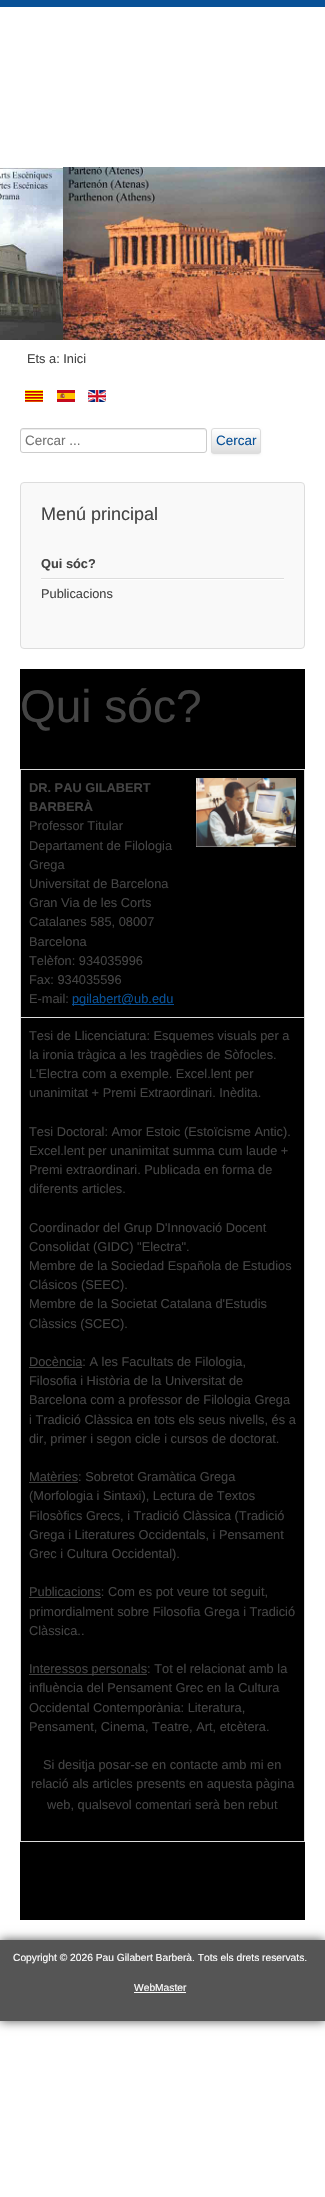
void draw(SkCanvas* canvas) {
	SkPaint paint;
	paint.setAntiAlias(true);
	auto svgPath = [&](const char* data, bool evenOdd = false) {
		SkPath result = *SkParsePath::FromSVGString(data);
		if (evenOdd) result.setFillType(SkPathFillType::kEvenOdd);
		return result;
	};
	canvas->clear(0xffffffff);
	paint.setColor(0xff095197);
	canvas->drawRect(SkRect::MakeXYWH(0, 0, 325, 7), paint);
	canvas->drawImageRect(SkImages::DeferredFromEncodedData(SkData::MakeFromFileName("img1.png")), SkRect::MakeXYWH(0, 167, 325, 173), SkSamplingOptions());
	SkFont f1(fontMgr->matchFamilyStyle("Liberation Sans", SkFontStyle::Normal()), 12.8);
	f1.setSubpixel(true);
	paint.setColor(0xff444444);
	canvas->drawString("Ets a: Inici", 27, 363, f1, paint);
	canvas->drawImageRect(SkImages::DeferredFromEncodedData(SkData::MakeFromFileName("img2.png")), SkRect::MakeXYWH(25, 390, 18, 12), SkSamplingOptions());
	canvas->drawImageRect(SkImages::DeferredFromEncodedData(SkData::MakeFromFileName("img3.png")), SkRect::MakeXYWH(57, 390, 18, 12), SkSamplingOptions());
	canvas->drawImageRect(SkImages::DeferredFromEncodedData(SkData::MakeFromFileName("img4.png")), SkRect::MakeXYWH(88, 390, 18, 12), SkSamplingOptions());
	paint.setColor(0xffececec);
	canvas->drawPath(svgPath("M23 430H204C205 430 206 431 206 432V431C206 430 205 429 204 429H23C22 429 21 430 21 431V432C21 431 22 430 23 430Z"), paint);
	paint.setStroke(true);
	paint.setStrokeWidth(1);
	paint.setColor(0xffcccccc);
	canvas->drawRoundRect(SkRect::MakeXYWH(20.5, 428.5, 186, 24), 2.5, 2.5, paint);
	SkFont f2(fontMgr->matchFamilyStyle("Liberation Sans", SkFontStyle::Normal()), 13.5);
	f2.setSubpixel(true);
	paint.setStroke(false);
	paint.setColor(0xff757575);
	canvas->drawString("Cercar ...", 25, 445, f2, paint);
	paint.setColor(0x0d000000);
	paint.setMaskFilter(SkMaskFilter::MakeBlur(kNormal_SkBlurStyle, 1));
	canvas->drawRoundRect(SkRect::MakeXYWH(211, 429, 50, 26), 3, 3, paint);
	paint.setMaskFilter(nullptr);
	canvas->save();
	canvas->clipPath(svgPath("M214 428H258C259.5 428 261 429.5 261 431V451C261 452.5 259.5 454 258 454H214C212.5 454 211 452.5 211 451V431C211 429.5 212.5 428 214 428Z"), true);
	{
		const SkColor colors[] = {0xffffffff, 0xffdddddd};
		const float stops[] = {0, 1};
		const SkPoint ends[] = {{236, 429}, {236, 453}};
		paint.setShader(SkGradientShader::MakeLinear(ends, colors, stops, 2, SkTileMode::kClamp));
		paint.setAlpha(255);
	}
	canvas->drawRect(SkRect::MakeXYWH(211, 429, 50, 24), paint);
	canvas->restore();
	paint.setStroke(true);
	paint.setShader(nullptr);
	paint.setColor(0xffdddddd);
	canvas->drawRoundRect(SkRect::MakeXYWH(211.5, 428.5, 49, 25), 2.5, 2.5, paint);
	paint.setStroke(false);
	paint.setColor(0xff095197);
	canvas->drawString("Cercar", 216, 445, f2, paint);
	paint.setColor(0xfff9f9f9);
	canvas->drawRoundRect(SkRect::MakeXYWH(20.5, 482.5, 284, 166), 3.5, 3.5, paint);
	paint.setStroke(true);
	paint.setColor(0xffdddddd);
	canvas->drawRoundRect(SkRect::MakeXYWH(20.5, 482.5, 284, 166), 3.5, 3.5, paint);
	SkFont f3(fontMgr->matchFamilyStyle("Liberation Sans", SkFontStyle::Normal()), 18);
	f3.setSubpixel(true);
	paint.setStroke(false);
	paint.setColor(0xff444444);
	canvas->drawString("Menú principal", 41, 520, f3, paint);
	paint.setColor(0xffffffff);
	canvas->drawRect(SkRect::MakeXYWH(41, 579, 243, 1), paint);
	paint.setColor(0xffdddddd);
	canvas->drawRect(SkRect::MakeXYWH(41, 578, 243, 1), paint);
	SkFont f4(fontMgr->matchFamilyStyle("Liberation Sans", SkFontStyle::Bold()), 12.8);
	f4.setSubpixel(true);
	paint.setColor(0xff444444);
	canvas->drawString("Qui sóc?", 41, 568, f4, paint);
	canvas->drawString("Publicacions", 41, 598, f1, paint);
	paint.setColor(0xff000000);
	canvas->drawRect(SkRect::MakeXYWH(20, 669, 285, 1251), paint);
	SkFont f5(fontMgr->matchFamilyStyle("Liberation Sans", SkFontStyle::Normal()), 46);
	f5.setSubpixel(true);
	paint.setColor(0xff444444);
	canvas->drawString("Qui sóc?", 20, 722, f5, paint);
	paint.setColor(0xffdddddd);
	canvas->drawRect(SkRect::MakeXYWH(20, 769, 285, 1), paint);
	canvas->drawRect(SkRect::MakeXYWH(304, 769, 1, 1073), paint);
	canvas->drawRect(SkRect::MakeXYWH(20, 1841, 285, 1), paint);
	canvas->drawRect(SkRect::MakeXYWH(20, 769, 1, 1073), paint);
	paint.setColor(0xff444444);
	canvas->drawString("DR. PAU GILABERT", 29, 792, f4, paint);
	canvas->drawString("BARBERÀ", 29, 811, f4, paint);
	canvas->drawString("Professor Titular", 29, 830, f1, paint);
	canvas->drawString("Departament de Filologia", 29, 850, f1, paint);
	canvas->drawString("Grega", 29, 869, f1, paint);
	canvas->drawString("Universitat de Barcelona", 29, 888, f1, paint);
	canvas->drawString("Gran Via de les Corts", 29, 907, f1, paint);
	canvas->drawString("Catalanes 585, 08007", 29, 926, f1, paint);
	canvas->drawString("Barcelona", 29, 946, f1, paint);
	canvas->drawString("Telèfon: 934035996", 29, 965, f1, paint);
	canvas->drawString("Fax: 934035596", 29, 984, f1, paint);
	canvas->drawString("E-mail:", 29, 1003, f1, paint);
	paint.setColor(0xff095197);
	canvas->drawRect(SkRect::MakeXYWH(72, 1004, 102, 1), paint);
	canvas->drawString("pgilabert@ub.edu", 72, 1003, f1, paint);
	canvas->drawImageRect(SkImages::DeferredFromEncodedData(SkData::MakeFromFileName("img5.png")), SkRect::MakeXYWH(196, 778, 100, 69), SkSamplingOptions());
	paint.setColor(0xffdddddd);
	canvas->drawRect(SkRect::MakeXYWH(20, 1017, 285, 1), paint);
	paint.setColor(0xff444444);
	canvas->drawString("Tesi de Llicenciatura: Esquemes visuals per a", 29, 1040, f1, paint);
	canvas->drawString("la ironia tràgica a les tragèdies de Sòfocles.", 29, 1059, f1, paint);
	canvas->drawString("L'Electra com a exemple. Excel.lent per", 29, 1078, f1, paint);
	canvas->drawString("unanimitat + Premi Extraordinari. Inèdita.", 29, 1097, f1, paint);
	canvas->drawString("Tesi Doctoral: Amor Estoic (Estoïcisme Antic).", 29, 1136, f1, paint);
	canvas->drawString("Excel.lent per unanimitat summa cum laude +", 29, 1155, f1, paint);
	canvas->drawString("Premi extraordinari. Publicada en forma de", 29, 1174, f1, paint);
	canvas->drawString("diferents articles.", 29, 1193, f1, paint);
	canvas->drawString("Coordinador del Grup D'Innovació Docent", 29, 1232, f1, paint);
	canvas->drawString("Consolidat (GIDC) \"Electra\".", 29, 1251, f1, paint);
	canvas->drawString("Membre de la Sociedad Española de Estudios", 29, 1270, f1, paint);
	canvas->drawString("Clásicos (SEEC).", 29, 1289, f1, paint);
	canvas->drawString("Membre de la Societat Catalana d'Estudis", 29, 1308, f1, paint);
	canvas->drawString("Clàssics (SCEC).", 29, 1328, f1, paint);
	canvas->drawRect(SkRect::MakeXYWH(29, 1367, 53, 1), paint);
	canvas->drawString("Docència: A les Facultats de Filologia,", 29, 1366, f1, paint);
	canvas->drawString("Filosofia i Història de la Universitat de", 29, 1385, f1, paint);
	canvas->drawString("Barcelona com a professor de Filologia Grega", 29, 1404, f1, paint);
	canvas->drawString("i Tradició Clàssica en tots els seus nivells, és a", 29, 1424, f1, paint);
	canvas->drawString("dir, primer i segon cicle i cursos de doctorat.", 29, 1443, f1, paint);
	canvas->drawRect(SkRect::MakeXYWH(29, 1482, 49, 1), paint);
	canvas->drawString("Matèries: Sobretot Gramàtica Grega", 29, 1481, f1, paint);
	canvas->drawString("(Morfologia i Sintaxi), Lectura de Textos", 29, 1500, f1, paint);
	canvas->drawString("Filosòfics Grecs, i Tradició Clàssica (Tradició", 29, 1520, f1, paint);
	canvas->drawString("Grega i Literatures Occidentals, i Pensament", 29, 1539, f1, paint);
	canvas->drawString("Grec i Cultura Occidental).", 29, 1558, f1, paint);
	canvas->drawRect(SkRect::MakeXYWH(29, 1597, 72, 1), paint);
	canvas->drawString("Publicacions: Com es pot veure tot seguit,", 29, 1596, f1, paint);
	canvas->drawString("primordialment sobre Filosofia Grega i Tradició", 29, 1616, f1, paint);
	canvas->drawString("Clàssica..", 29, 1635, f1, paint);
	canvas->drawRect(SkRect::MakeXYWH(29, 1674, 118, 1), paint);
	canvas->drawString("Interessos personals: Tot el relacionat amb la", 29, 1673, f1, paint);
	canvas->drawString("influència del Pensament Grec en la Cultura", 29, 1692, f1, paint);
	canvas->drawString("Occidental Contemporània: Literatura,", 29, 1712, f1, paint);
	canvas->drawString("Pensament, Cinema, Teatre, Art, etcètera.", 29, 1731, f1, paint);
	canvas->drawString("Si desitja posar-se en contacte amb mi en", 43, 1769, f1, paint);
	canvas->drawString("relació als articles presents en aquesta pàgina", 31, 1788, f1, paint);
	canvas->drawString("web, qualsevol comentari serà ben rebut", 47, 1809, f1, paint);
	paint.setColor(0xff555555);
	paint.setMaskFilter(SkMaskFilter::MakeBlur(kNormal_SkBlurStyle, 5));
	canvas->drawRect(SkRect::MakeXYWH(0, 1940, 325, 81), paint);
	paint.setMaskFilter(nullptr);
	canvas->drawRect(SkRect::MakeXYWH(0, 1940, 325, 81), paint);
	SkFont f6(fontMgr->matchFamilyStyle("Liberation Sans", SkFontStyle::Normal()), 10.25);
	f6.setSubpixel(true);
	paint.setColor(0xffffffff);
	canvas->drawString("Copyright © 2026 Pau Gilabert Barberà. Tots els drets reservats.", 13, 1961, f6, paint);
	canvas->drawString("WebMaster", 134, 1991, f6, paint);
	canvas->drawRect(SkRect::MakeXYWH(134, 1992, 52, 1), paint);
}
